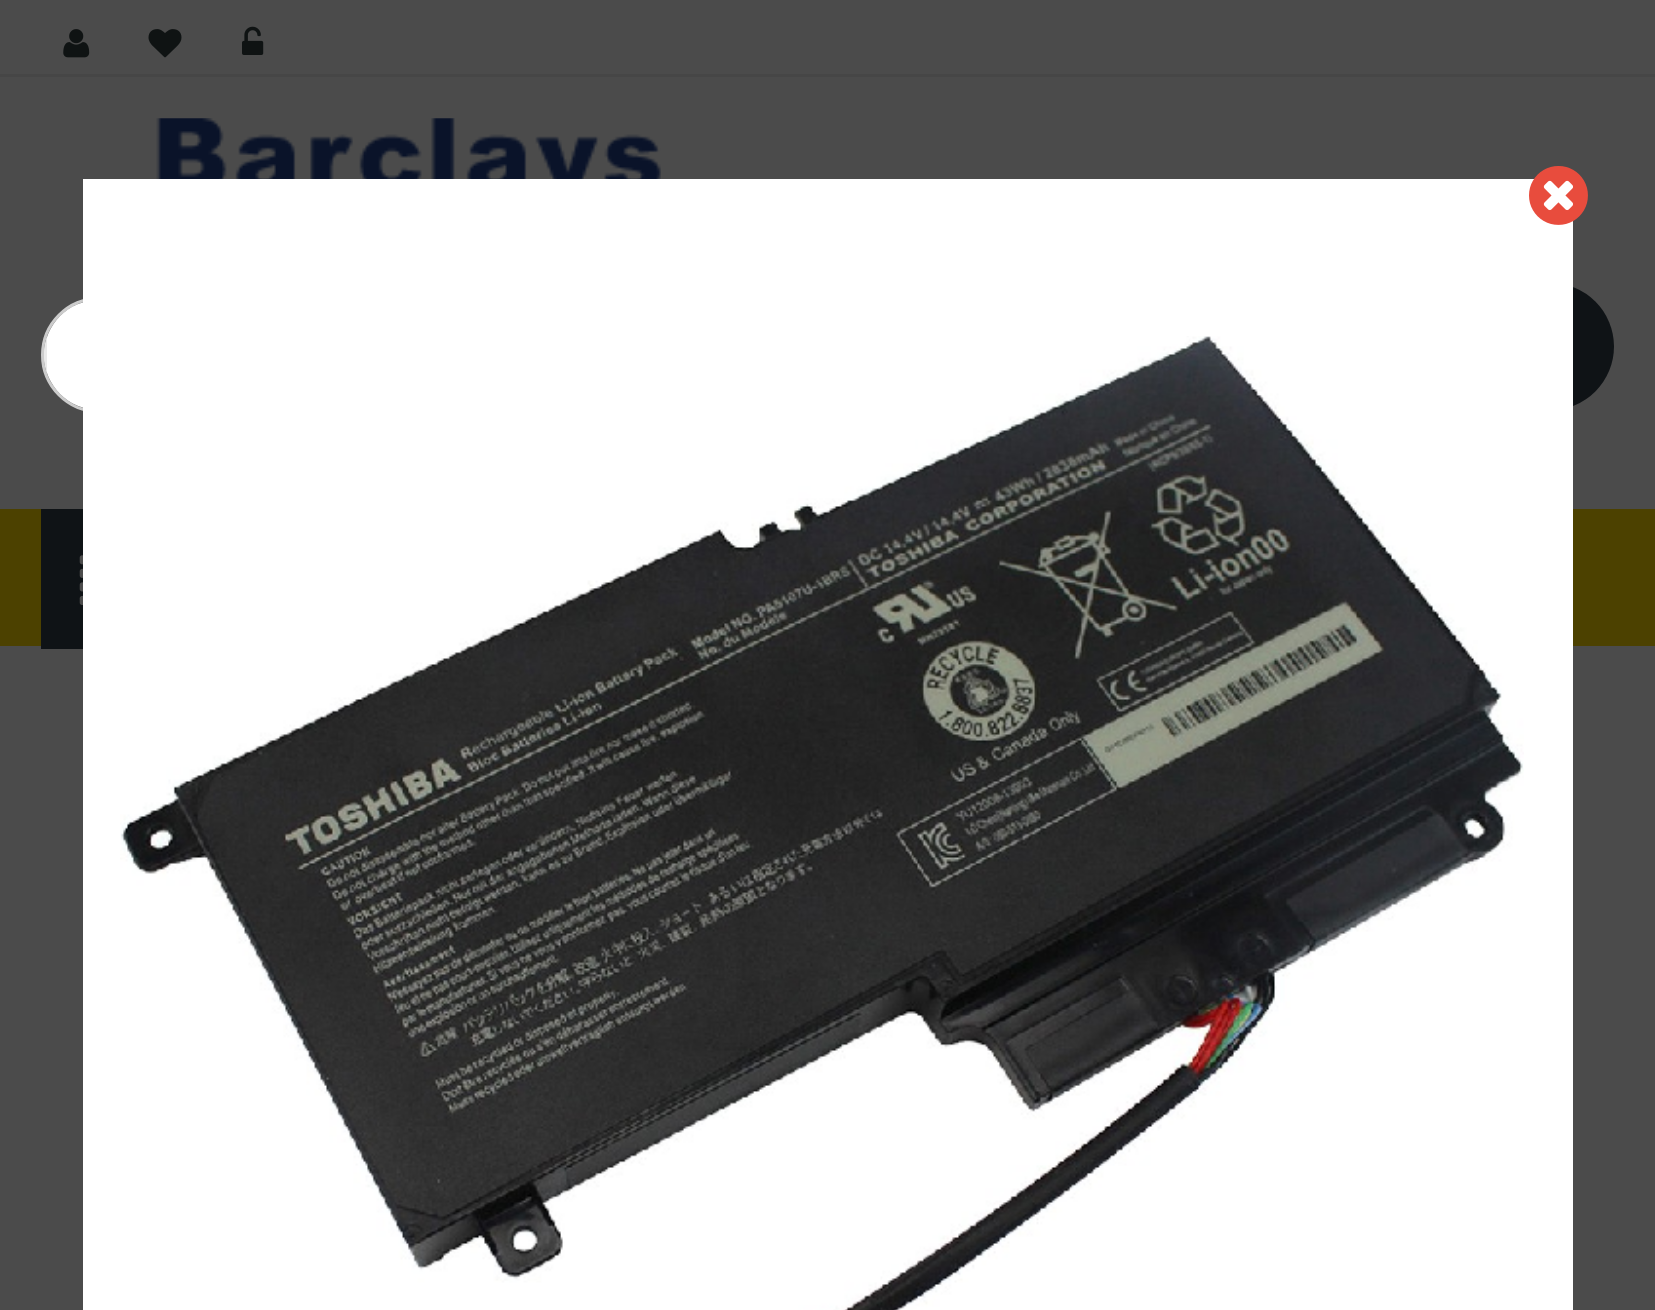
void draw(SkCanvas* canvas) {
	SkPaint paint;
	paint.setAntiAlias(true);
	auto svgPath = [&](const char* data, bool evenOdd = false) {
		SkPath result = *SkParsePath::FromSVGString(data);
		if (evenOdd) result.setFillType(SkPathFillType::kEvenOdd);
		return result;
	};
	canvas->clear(0xff4b4b4b);
	paint.setColor(0xff464646);
	canvas->drawRect(SkRect::MakeXYWH(0, 74, 1655, 3), paint);
	canvas->drawImageRect(SkImages::DeferredFromEncodedData(SkData::MakeFromFileName("img1.png")), SkRect::MakeXYWH(63, 29, 27, 29), SkSamplingOptions());
	canvas->drawImageRect(SkImages::DeferredFromEncodedData(SkData::MakeFromFileName("img2.png")), SkRect::MakeXYWH(148, 29, 34, 29), SkSamplingOptions());
	canvas->drawImageRect(SkImages::DeferredFromEncodedData(SkData::MakeFromFileName("img3.png")), SkRect::MakeXYWH(242, 26, 22, 29), SkSamplingOptions());
	canvas->drawImageRect(SkImages::DeferredFromEncodedData(SkData::MakeFromFileName("img4.png")), SkRect::MakeXYWH(156, 118, 505, 61), SkSamplingOptions());
	paint.setStroke(true);
	paint.setStrokeWidth(3);
	paint.setColor(0xffcccccc);
	canvas->drawRoundRect(SkRect::MakeXYWH(42.5, 298.5, 1158, 113), 56.5, 56.5, paint);
	paint.setStroke(false);
	paint.setColor(0xffffffff);
	canvas->drawPath(svgPath("M99 300H968V410H99C68.5 410 44 385.5 44 355C44 324.5 68.5 300 99 300Z"), paint);
	canvas->save();
	canvas->clipPath(svgPath("M99 300H1144C1174.5 300 1199 324.5 1199 355C1199 385.5 1174.5 410 1144 410H99C68.5 410 44 385.5 44 355C44 324.5 68.5 300 99 300Z"), true);
	paint.setColor(0xffeaeaea);
	canvas->drawRect(SkRect::MakeXYWH(44, 337, 3, 36), paint);
	canvas->restore();
	paint.setColor(0xff0f1316);
	canvas->drawRoundRect(SkRect::MakeXYWH(1485, 283, 129, 127), 63.5, 63.5, paint);
	paint.setColor(0xff4c4100);
	canvas->drawRect(SkRect::MakeXYWH(0, 509, 1655, 137), paint);
	paint.setColor(0xff0f1316);
	canvas->drawRect(SkRect::MakeXYWH(41, 509, 42, 140), paint);
	canvas->drawImageRect(SkImages::DeferredFromEncodedData(SkData::MakeFromFileName("img5.png")), SkRect::MakeXYWH(79, 555, 4, 50), SkSamplingOptions());
	paint.setColor(0xffffffff);
	canvas->drawRect(SkRect::MakeXYWH(83, 179, 1490, 1131), paint);
	canvas->drawImageRect(SkImages::DeferredFromEncodedData(SkData::MakeFromFileName("img6.png")), SkRect::MakeXYWH(1529, 166, 59, 59), SkSamplingOptions());
	canvas->drawImageRect(SkImages::DeferredFromEncodedData(SkData::MakeFromFileName("img7.png")), SkRect::MakeXYWH(120, 336, 1404, 974), SkSamplingOptions());
}
